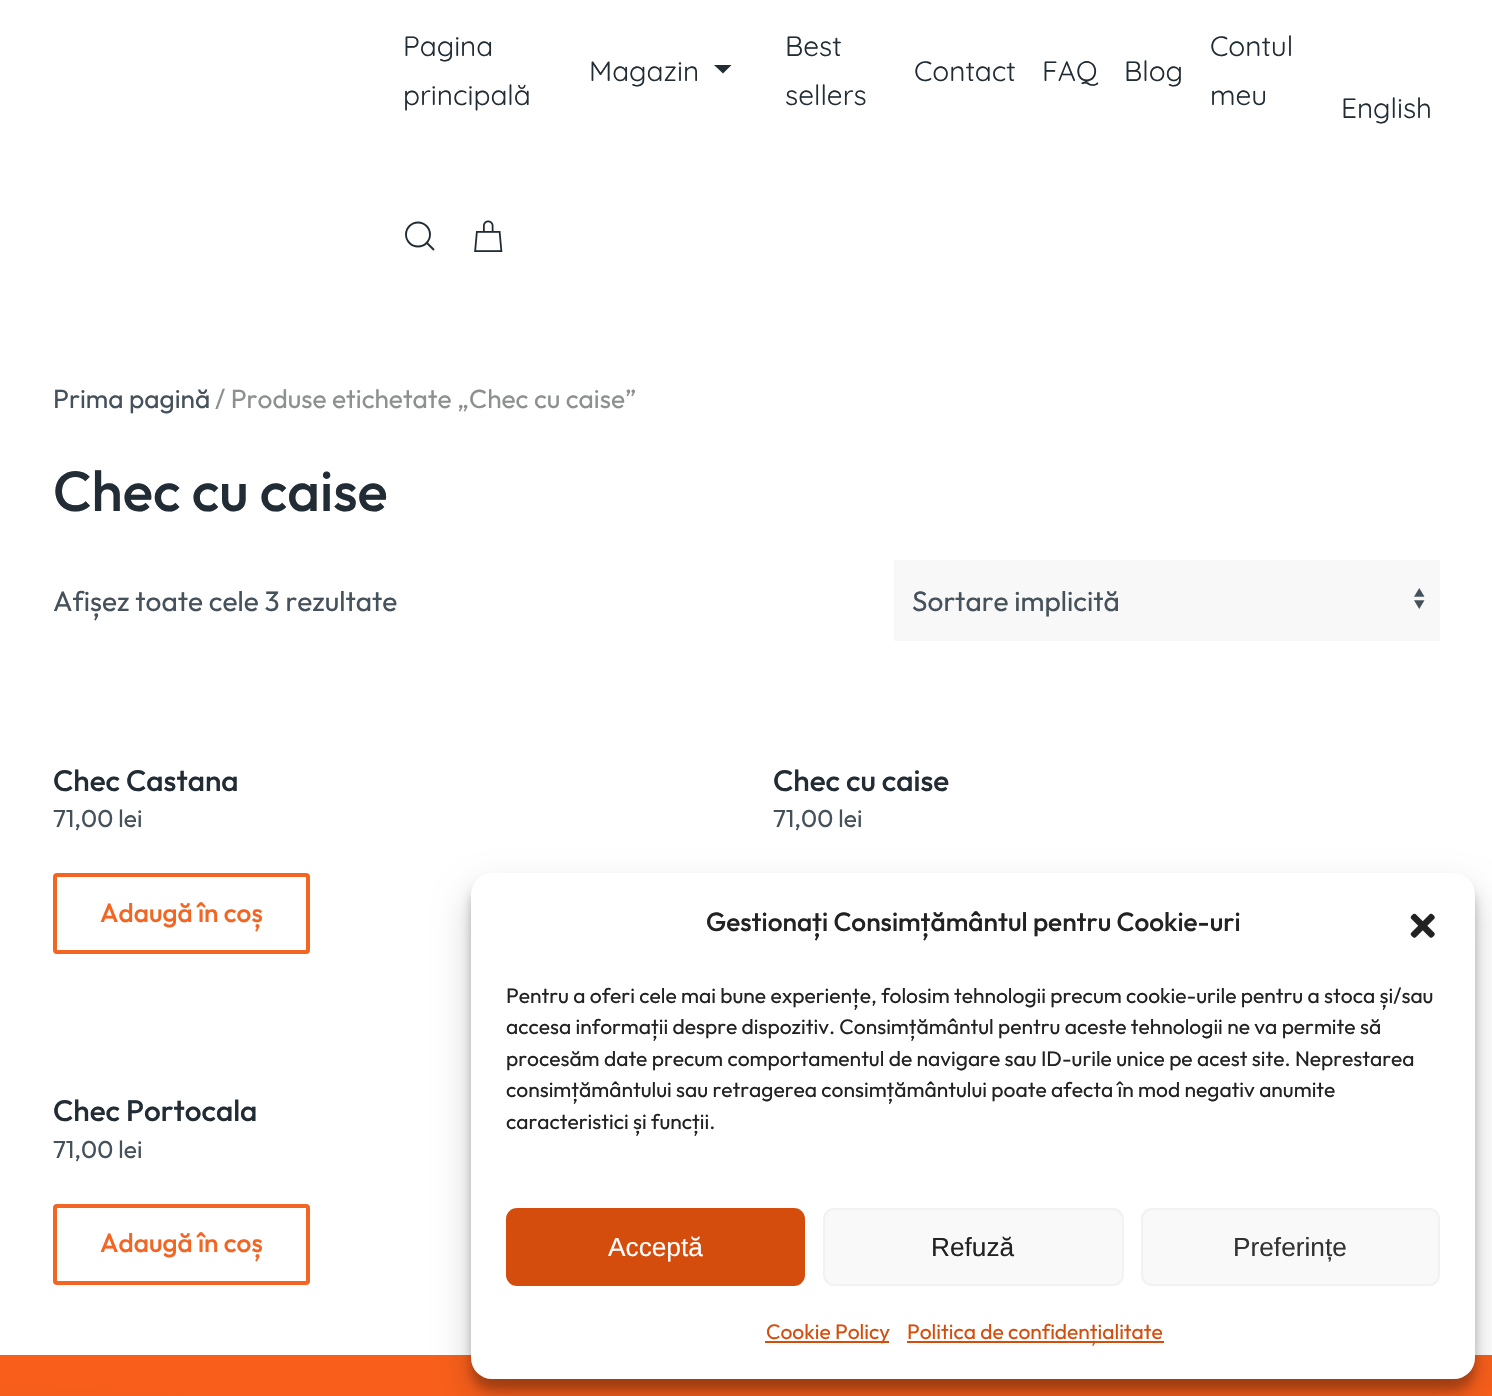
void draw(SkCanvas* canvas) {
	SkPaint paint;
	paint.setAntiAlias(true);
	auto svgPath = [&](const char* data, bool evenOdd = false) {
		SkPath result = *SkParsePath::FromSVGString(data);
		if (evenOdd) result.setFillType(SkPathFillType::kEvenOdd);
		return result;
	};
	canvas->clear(0xffffffff);
	SkFont f1(fontMgr->matchFamilyStyle("Quicksand", SkFontStyle::Normal()), 28);
	f1.setSubpixel(true);
	paint.setColor(0xff212c34);
	canvas->drawString("Pagina", 403, 56, f1, paint);
	canvas->drawString("principală", 403, 105, f1, paint);
	canvas->drawString("Magazin", 589, 81, f1, paint);
	canvas->drawPath(svgPath("M714 65H731.5L723 73.5Z"), paint);
	canvas->drawString("Best", 785, 56, f1, paint);
	canvas->drawString("sellers", 785, 105, f1, paint);
	canvas->drawString("Contact", 914, 81, f1, paint);
	canvas->drawString("FAQ", 1042, 81, f1, paint);
	canvas->drawString("Blog", 1124, 81, f1, paint);
	canvas->drawString("Contul", 1210, 56, f1, paint);
	canvas->drawString("meu", 1210, 105, f1, paint);
	canvas->drawString("English", 1341, 118, f1, paint);
	paint.setStroke(true);
	paint.setStrokeWidth(1.9);
	canvas->drawCircle(418, 234.5, 12, paint);
	canvas->drawPath(svgPath("M427 243L434 250Z"), paint);
	canvas->drawImageRect(SkImages::DeferredFromEncodedData(SkData::MakeFromFileName("img1.png")), SkRect::MakeXYWH(474, 220, 29, 32), SkSamplingOptions());
	SkFont f2(fontMgr->matchFamilyStyle("Outfit", SkFontStyle::Normal()), 26.25);
	f2.setSubpixel(true);
	paint.setStroke(false);
	paint.setColor(0xff45515b);
	canvas->drawString("Prima pagină", 53, 408, f2, paint);
	paint.setColor(0xff8d9090);
	canvas->drawString("/ Produse etichetate „Chec cu caise”", 215, 408, f2, paint);
	SkFont f3(fontMgr->matchFamilyStyle("Outfit", SkFontStyle(500, SkFontStyle::kNormal_Width, SkFontStyle::kUpright_Slant)), 56.5);
	f3.setSubpixel(true);
	paint.setColor(0xff212c34);
	canvas->drawString("Chec cu caise", 53, 511, f3, paint);
	SkFont f4(fontMgr->matchFamilyStyle("Outfit", SkFontStyle::Normal()), 28);
	f4.setSubpixel(true);
	paint.setColor(0xff45515b);
	canvas->drawString("Afișez toate cele 3 rezultate", 53, 611, f4, paint);
	paint.setColor(0xfff8f8f8);
	canvas->drawRect(SkRect::MakeXYWH(894, 560, 546, 81), paint);
	canvas->drawImageRect(SkImages::DeferredFromEncodedData(SkData::MakeFromFileName("img2.png")), SkRect::MakeXYWH(1414, 588, 11, 21), SkSamplingOptions());
	paint.setColor(0xff45515b);
	canvas->drawString("Sortare implicită", 912, 611, f4, paint);
	SkFont f5(fontMgr->matchFamilyStyle("Outfit", SkFontStyle(500, SkFontStyle::kNormal_Width, SkFontStyle::kUpright_Slant)), 29.75);
	f5.setSubpixel(true);
	paint.setColor(0xff212c34);
	canvas->drawString("Chec Castana", 53, 791, f5, paint);
	SkFont f6(fontMgr->matchFamilyStyle("Outfit", SkFontStyle::Normal()), 24.5);
	f6.setSubpixel(true);
	paint.setColor(0xff45515b);
	canvas->drawString("71,00 lei", 53, 827, f6, paint);
	paint.setStroke(true);
	paint.setStrokeWidth(4);
	paint.setColor(0xfff26522);
	canvas->drawRoundRect(SkRect::MakeXYWH(55, 875, 253, 77), 2, 2, paint);
	SkFont f7(fontMgr->matchFamilyStyle("Outfit", SkFontStyle(500, SkFontStyle::kNormal_Width, SkFontStyle::kUpright_Slant)), 26.25);
	f7.setSubpixel(true);
	paint.setStroke(false);
	canvas->drawString("Adaugă în coș", 100, 922, f7, paint);
	paint.setColor(0xff212c34);
	canvas->drawString("Chec cu caise", 773, 791, f5, paint);
	paint.setColor(0xff45515b);
	canvas->drawString("71,00 lei", 773, 827, f6, paint);
	paint.setColor(0xff212c34);
	canvas->drawString("Chec Portocala", 53, 1121, f5, paint);
	paint.setColor(0xff45515b);
	canvas->drawString("71,00 lei", 53, 1158, f6, paint);
	paint.setStroke(true);
	paint.setColor(0xfff26522);
	canvas->drawRoundRect(SkRect::MakeXYWH(55, 1206, 253, 77), 2, 2, paint);
	paint.setStroke(false);
	canvas->drawString("Adaugă în coș", 100, 1252, f7, paint);
	{
		const SkColor colors[] = {0xfff95f1b, 0xff000000};
		const float stops[] = {0.1, 1};
		const SkPoint ends[] = {{790, 1305}, {702, 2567}};
		paint.setShader(SkGradientShader::MakeLinear(ends, colors, stops, 2, SkTileMode::kClamp));
		paint.setAlpha(255);
	}
	canvas->drawRect(SkRect::MakeXYWH(0, 1355, 1492, 41), paint);
	paint.setShader(nullptr);
	paint.setColor(0x3b000000);
	paint.setMaskFilter(SkMaskFilter::MakeBlur(kNormal_SkBlurStyle, 5));
	canvas->drawRoundRect(SkRect::MakeXYWH(471, 884, 1004, 506), 21, 21, paint);
	paint.setMaskFilter(nullptr);
	paint.setColor(0x30000000);
	paint.setMaskFilter(SkMaskFilter::MakeBlur(kNormal_SkBlurStyle, 17.5));
	canvas->drawRoundRect(SkRect::MakeXYWH(471, 891, 1004, 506), 21, 21, paint);
	paint.setMaskFilter(nullptr);
	paint.setColor(0xffffffff);
	canvas->drawRoundRect(SkRect::MakeXYWH(471, 873, 1004, 506), 21, 21, paint);
	paint.setColor(0xff222222);
	canvas->drawString("Gestionați Consimțământul pentru Cookie-uri", 706, 931, f7, paint);
	canvas->drawImageRect(SkImages::DeferredFromEncodedData(SkData::MakeFromFileName("img3.png")), SkRect::MakeXYWH(1410, 913, 25, 25), SkSamplingOptions());
	SkFont f8(fontMgr->matchFamilyStyle("Outfit", SkFontStyle::Normal()), 21);
	f8.setSubpixel(true);
	canvas->drawString("Pentru a oferi cele mai bune experiențe, folosim tehnologii precum cookie-urile pentru a stoca și/sau", 506, 1003, f8, paint);
	canvas->drawString("accesa informații despre dispozitiv. Consimțământul pentru aceste tehnologii ne va permite să", 506, 1034, f8, paint);
	canvas->drawString("procesăm date precum comportamentul de navigare sau ID-urile unice pe acest site. Neprestarea", 506, 1066, f8, paint);
	canvas->drawString("consimțământului sau retragerea consimțământului poate afecta în mod negativ anumite", 506, 1097, f8, paint);
	canvas->drawString("caracteristici și funcții.", 506, 1129, f8, paint);
	paint.setColor(0xffd44d0d);
	canvas->drawRoundRect(SkRect::MakeXYWH(507, 1209, 297, 76), 10, 10, paint);
	paint.setStroke(true);
	paint.setStrokeWidth(2);
	canvas->drawRoundRect(SkRect::MakeXYWH(507, 1209, 297, 76), 10, 10, paint);
	SkFont f9(fontMgr->matchFamilyStyle("Liberation Sans", SkFontStyle::Normal()), 26.25);
	f9.setSubpixel(true);
	paint.setStroke(false);
	paint.setColor(0xffffffff);
	canvas->drawString("Acceptă", 608, 1256, f9, paint);
	paint.setColor(0xfff9f9f9);
	canvas->drawRoundRect(SkRect::MakeXYWH(824, 1209, 299, 76), 10, 10, paint);
	paint.setStroke(true);
	paint.setColor(0xfff2f2f2);
	canvas->drawRoundRect(SkRect::MakeXYWH(824, 1209, 299, 76), 10, 10, paint);
	paint.setStroke(false);
	paint.setColor(0xff222222);
	canvas->drawString("Refuză", 931, 1256, f9, paint);
	paint.setColor(0xfff9f9f9);
	canvas->drawRoundRect(SkRect::MakeXYWH(1142, 1209, 297, 76), 10, 10, paint);
	paint.setStroke(true);
	paint.setColor(0xfff2f2f2);
	canvas->drawRoundRect(SkRect::MakeXYWH(1142, 1209, 297, 76), 10, 10, paint);
	paint.setStroke(false);
	paint.setColor(0xff333333);
	canvas->drawString("Preferințe", 1233, 1256, f9, paint);
	paint.setColor(0xffd44d0d);
	canvas->drawRect(SkRect::MakeXYWH(765, 1341, 124, 2), paint);
	canvas->drawString("Cookie Policy", 766, 1339, f8, paint);
	canvas->drawRect(SkRect::MakeXYWH(907, 1341, 257, 2), paint);
	canvas->drawString("Politica de confidențialitate", 907, 1339, f8, paint);
}
